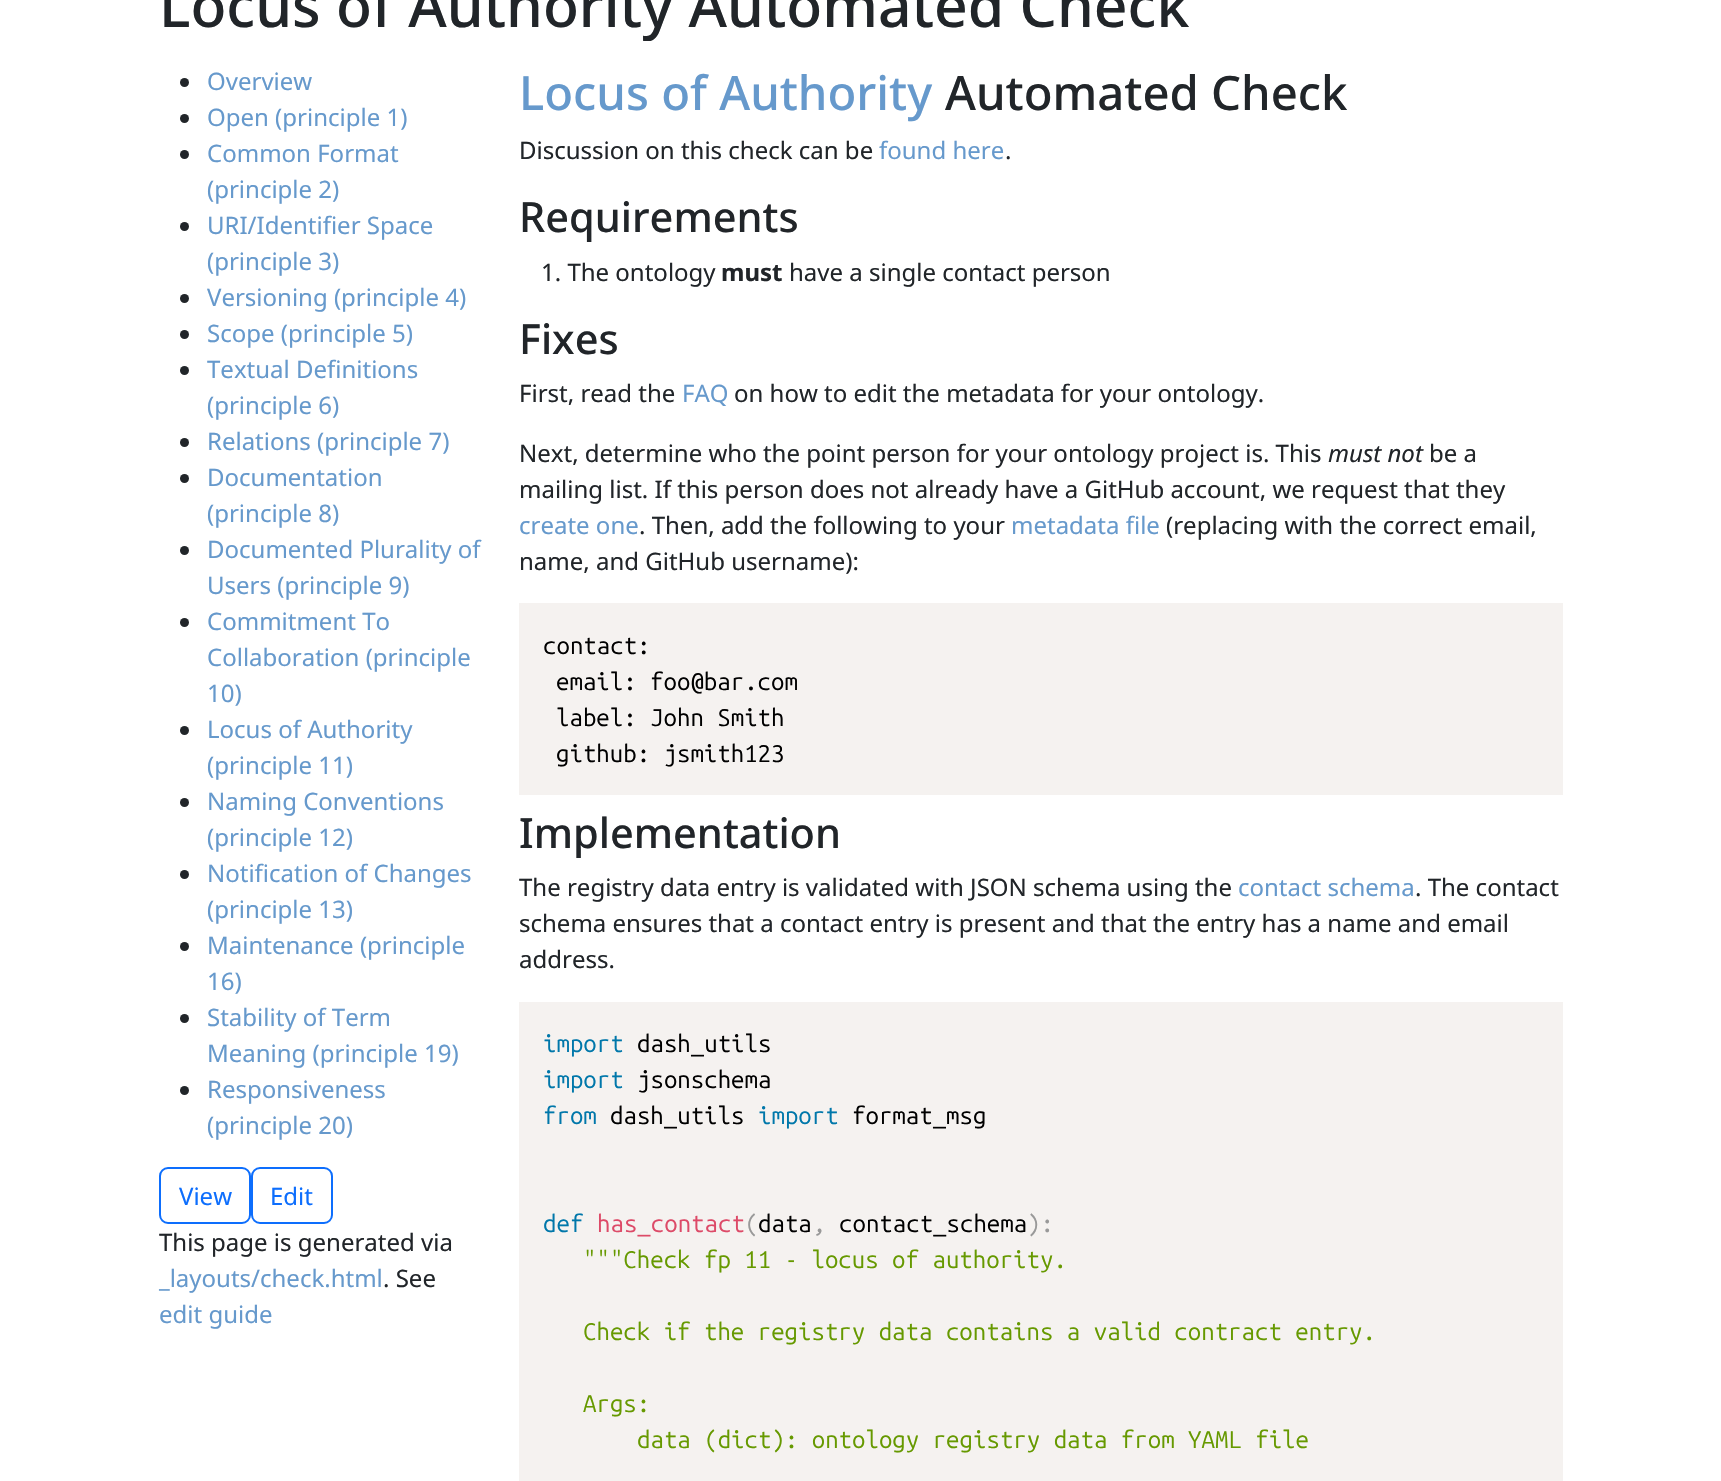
void draw(SkCanvas* canvas) {
	SkPaint paint;
	paint.setAntiAlias(true);
	canvas->clear(0xffffffff);
	SkFont f1(fontMgr->matchFamilyStyle("Noto Sans", SkFontStyle(500, SkFontStyle::kNormal_Width, SkFontStyle::kUpright_Slant)), 58.8);
	f1.setSubpixel(true);
	paint.setColor(0xff212529);
	canvas->drawString("Locus of Authority Automated Check", 159, 27, f1, paint);
	canvas->drawCircle(184.5, 82.5, 4.5, paint);
	SkFont f2(fontMgr->matchFamilyStyle("Noto Sans", SkFontStyle::Normal()), 24);
	f2.setSubpixel(true);
	paint.setColor(0xff6699cc);
	canvas->drawString("Overview", 207, 90, f2, paint);
	paint.setColor(0xff212529);
	canvas->drawCircle(184.5, 118.5, 4.5, paint);
	paint.setColor(0xff6699cc);
	canvas->drawString("Open (principle 1)", 207, 126, f2, paint);
	paint.setColor(0xff212529);
	canvas->drawCircle(184.5, 154.5, 4.5, paint);
	paint.setColor(0xff6699cc);
	canvas->drawString("Common Format", 207, 162, f2, paint);
	canvas->drawString("(principle 2)", 207, 198, f2, paint);
	paint.setColor(0xff212529);
	canvas->drawCircle(184.5, 226.5, 4.5, paint);
	paint.setColor(0xff6699cc);
	canvas->drawString("URI/Identifier Space", 207, 234, f2, paint);
	canvas->drawString("(principle 3)", 207, 270, f2, paint);
	paint.setColor(0xff212529);
	canvas->drawCircle(184.5, 298.5, 4.5, paint);
	paint.setColor(0xff6699cc);
	canvas->drawString("Versioning (principle 4)", 207, 306, f2, paint);
	paint.setColor(0xff212529);
	canvas->drawCircle(184.5, 334.5, 4.5, paint);
	paint.setColor(0xff6699cc);
	canvas->drawString("Scope (principle 5)", 207, 342, f2, paint);
	paint.setColor(0xff212529);
	canvas->drawCircle(184.5, 370.5, 4.5, paint);
	paint.setColor(0xff6699cc);
	canvas->drawString("Textual Definitions", 207, 378, f2, paint);
	canvas->drawString("(principle 6)", 207, 414, f2, paint);
	paint.setColor(0xff212529);
	canvas->drawCircle(184.5, 442.5, 4.5, paint);
	paint.setColor(0xff6699cc);
	canvas->drawString("Relations (principle 7)", 207, 450, f2, paint);
	paint.setColor(0xff212529);
	canvas->drawCircle(184.5, 478.5, 4.5, paint);
	paint.setColor(0xff6699cc);
	canvas->drawString("Documentation", 207, 486, f2, paint);
	canvas->drawString("(principle 8)", 207, 522, f2, paint);
	paint.setColor(0xff212529);
	canvas->drawCircle(184.5, 550.5, 4.5, paint);
	paint.setColor(0xff6699cc);
	canvas->drawString("Documented Plurality of", 207, 558, f2, paint);
	canvas->drawString("Users (principle 9)", 207, 594, f2, paint);
	paint.setColor(0xff212529);
	canvas->drawCircle(184.5, 622.5, 4.5, paint);
	paint.setColor(0xff6699cc);
	canvas->drawString("Commitment To", 207, 630, f2, paint);
	canvas->drawString("Collaboration (principle", 207, 666, f2, paint);
	canvas->drawString("10)", 207, 702, f2, paint);
	paint.setColor(0xff212529);
	canvas->drawCircle(184.5, 730.5, 4.5, paint);
	paint.setColor(0xff6699cc);
	canvas->drawString("Locus of Authority", 207, 738, f2, paint);
	canvas->drawString("(principle 11)", 207, 774, f2, paint);
	paint.setColor(0xff212529);
	canvas->drawCircle(184.5, 802.5, 4.5, paint);
	paint.setColor(0xff6699cc);
	canvas->drawString("Naming Conventions", 207, 810, f2, paint);
	canvas->drawString("(principle 12)", 207, 846, f2, paint);
	paint.setColor(0xff212529);
	canvas->drawCircle(184.5, 874.5, 4.5, paint);
	paint.setColor(0xff6699cc);
	canvas->drawString("Notification of Changes", 207, 882, f2, paint);
	canvas->drawString("(principle 13)", 207, 918, f2, paint);
	paint.setColor(0xff212529);
	canvas->drawCircle(184.5, 946.5, 4.5, paint);
	paint.setColor(0xff6699cc);
	canvas->drawString("Maintenance (principle", 207, 954, f2, paint);
	canvas->drawString("16)", 207, 990, f2, paint);
	paint.setColor(0xff212529);
	canvas->drawCircle(184.5, 1018.5, 4.5, paint);
	paint.setColor(0xff6699cc);
	canvas->drawString("Stability of Term", 207, 1026, f2, paint);
	canvas->drawString("Meaning (principle 19)", 207, 1062, f2, paint);
	paint.setColor(0xff212529);
	canvas->drawCircle(184.5, 1090.5, 4.5, paint);
	paint.setColor(0xff6699cc);
	canvas->drawString("Responsiveness", 207, 1098, f2, paint);
	canvas->drawString("(principle 20)", 207, 1134, f2, paint);
	paint.setStroke(true);
	paint.setStrokeWidth(2);
	paint.setColor(0xff0d6efd);
	canvas->drawRoundRect(SkRect::MakeXYWH(160, 1168, 90, 55), 8, 8, paint);
	paint.setStroke(false);
	canvas->drawString("View", 179, 1205, f2, paint);
	paint.setStroke(true);
	canvas->drawRoundRect(SkRect::MakeXYWH(252, 1168, 80, 55), 8, 8, paint);
	paint.setStroke(false);
	canvas->drawString("Edit", 270, 1205, f2, paint);
	paint.setColor(0xff212529);
	canvas->drawString("This page is generated via", 159, 1251, f2, paint);
	paint.setColor(0xff6699cc);
	canvas->drawString("_layouts/check.html", 159, 1287, f2, paint);
	paint.setColor(0xff212529);
	canvas->drawString(". See", 383, 1287, f2, paint);
	paint.setColor(0xff6699cc);
	canvas->drawString("edit guide", 159, 1323, f2, paint);
	SkFont f3(fontMgr->matchFamilyStyle("Noto Sans", SkFontStyle(500, SkFontStyle::kNormal_Width, SkFontStyle::kUpright_Slant)), 47.25);
	f3.setSubpixel(true);
	canvas->drawString("Locus of Authority", 519, 110, f3, paint);
	paint.setColor(0xff212529);
	canvas->drawString("Automated Check", 945, 110, f3, paint);
	canvas->drawString("Discussion on this check can be", 519, 159, f2, paint);
	paint.setColor(0xff6699cc);
	canvas->drawString("found here", 879, 159, f2, paint);
	paint.setColor(0xff212529);
	canvas->drawString(".", 1005, 159, f2, paint);
	SkFont f4(fontMgr->matchFamilyStyle("Noto Sans", SkFontStyle(500, SkFontStyle::kNormal_Width, SkFontStyle::kUpright_Slant)), 41.5);
	f4.setSubpixel(true);
	canvas->drawString("Requirements", 519, 232, f4, paint);
	canvas->drawString("1. The ontology", 541, 281, f2, paint);
	SkFont f5(fontMgr->matchFamilyStyle("Noto Sans", SkFontStyle::Bold()), 24);
	f5.setSubpixel(true);
	canvas->drawString("must", 721, 281, f5, paint);
	canvas->drawString("have a single contact person", 789, 281, f2, paint);
	canvas->drawString("Fixes", 519, 354, f4, paint);
	canvas->drawString("First, read the", 519, 402, f2, paint);
	paint.setColor(0xff6699cc);
	canvas->drawString("FAQ", 682, 402, f2, paint);
	paint.setColor(0xff212529);
	canvas->drawString("on how to edit the metadata for your ontology.", 734, 402, f2, paint);
	canvas->drawString("Next, determine who the point person for your ontology project is. This", 519, 462, f2, paint);
	SkFont f6(fontMgr->matchFamilyStyle("Noto Sans", SkFontStyle::Italic()), 24);
	f6.setSubpixel(true);
	canvas->drawString("must not", 1328, 462, f6, paint);
	canvas->drawString("be a", 1429, 462, f2, paint);
	canvas->drawString("mailing list. If this person does not already have a GitHub account, we request that they", 519, 498, f2, paint);
	paint.setColor(0xff6699cc);
	canvas->drawString("create one", 519, 534, f2, paint);
	paint.setColor(0xff212529);
	canvas->drawString(". Then, add the following to your", 639, 534, f2, paint);
	paint.setColor(0xff6699cc);
	canvas->drawString("metadata file", 1011, 534, f2, paint);
	paint.setColor(0xff212529);
	canvas->drawString("(replacing with the correct email,", 1166, 534, f2, paint);
	canvas->drawString("name, and GitHub username):", 519, 570, f2, paint);
	paint.setColor(0xfff5f2f0);
	canvas->drawRect(SkRect::MakeXYWH(519, 603, 1044, 192), paint);
	SkFont f7(fontMgr->matchFamilyStyle("Ubuntu Mono", SkFontStyle::Normal()), 24);
	f7.setSubpixel(true);
	paint.setColor(0xff000000);
	canvas->drawString("contact:", 543, 654, f7, paint);
	canvas->drawString("email: foo@bar.com", 556, 690, f7, paint);
	canvas->drawString("label: John Smith", 556, 726, f7, paint);
	canvas->drawString("github: jsmith123", 556, 762, f7, paint);
	paint.setColor(0xff212529);
	canvas->drawString("Implementation", 519, 848, f4, paint);
	canvas->drawString("The registry data entry is validated with JSON schema using the", 519, 896, f2, paint);
	paint.setColor(0xff6699cc);
	canvas->drawString("contact schema", 1238, 896, f2, paint);
	paint.setColor(0xff212529);
	canvas->drawString(". The contact", 1415, 896, f2, paint);
	canvas->drawString("schema ensures that a contact entry is present and that the entry has a name and email", 519, 932, f2, paint);
	canvas->drawString("address.", 519, 968, f2, paint);
	paint.setColor(0xfff5f2f0);
	canvas->drawRect(SkRect::MakeXYWH(519, 1002, 1044, 479), paint);
	paint.setColor(0xff0077aa);
	canvas->drawString("import", 543, 1052, f7, paint);
	paint.setColor(0xff000000);
	canvas->drawString("dash_utils", 637, 1052, f7, paint);
	paint.setColor(0xff0077aa);
	canvas->drawString("import", 543, 1088, f7, paint);
	paint.setColor(0xff000000);
	canvas->drawString("jsonschema", 637, 1088, f7, paint);
	paint.setColor(0xff0077aa);
	canvas->drawString("from", 543, 1124, f7, paint);
	paint.setColor(0xff000000);
	canvas->drawString("dash_utils", 610, 1124, f7, paint);
	paint.setColor(0xff0077aa);
	canvas->drawString("import", 758, 1124, f7, paint);
	paint.setColor(0xff000000);
	canvas->drawString("format_msg", 852, 1124, f7, paint);
	paint.setColor(0xff0077aa);
	canvas->drawString("def", 543, 1232, f7, paint);
	paint.setColor(0xffdd4a68);
	canvas->drawString("has_contact", 597, 1232, f7, paint);
	paint.setColor(0xff999999);
	canvas->drawString("(", 745, 1232, f7, paint);
	paint.setColor(0xff000000);
	canvas->drawString("data", 758, 1232, f7, paint);
	paint.setColor(0xff999999);
	canvas->drawString(",", 812, 1232, f7, paint);
	paint.setColor(0xff000000);
	canvas->drawString("contact_schema", 839, 1232, f7, paint);
	paint.setColor(0xff999999);
	canvas->drawString("):", 1027, 1232, f7, paint);
	paint.setColor(0xff669900);
	canvas->drawString("\"\"\"Check fp 11 - locus of authority.", 583, 1268, f7, paint);
	canvas->drawString("Check if the registry data contains a valid contract entry.", 583, 1340, f7, paint);
	canvas->drawString("Args:", 583, 1412, f7, paint);
	canvas->drawString("data (dict): ontology registry data from YAML file", 637, 1448, f7, paint);
}
